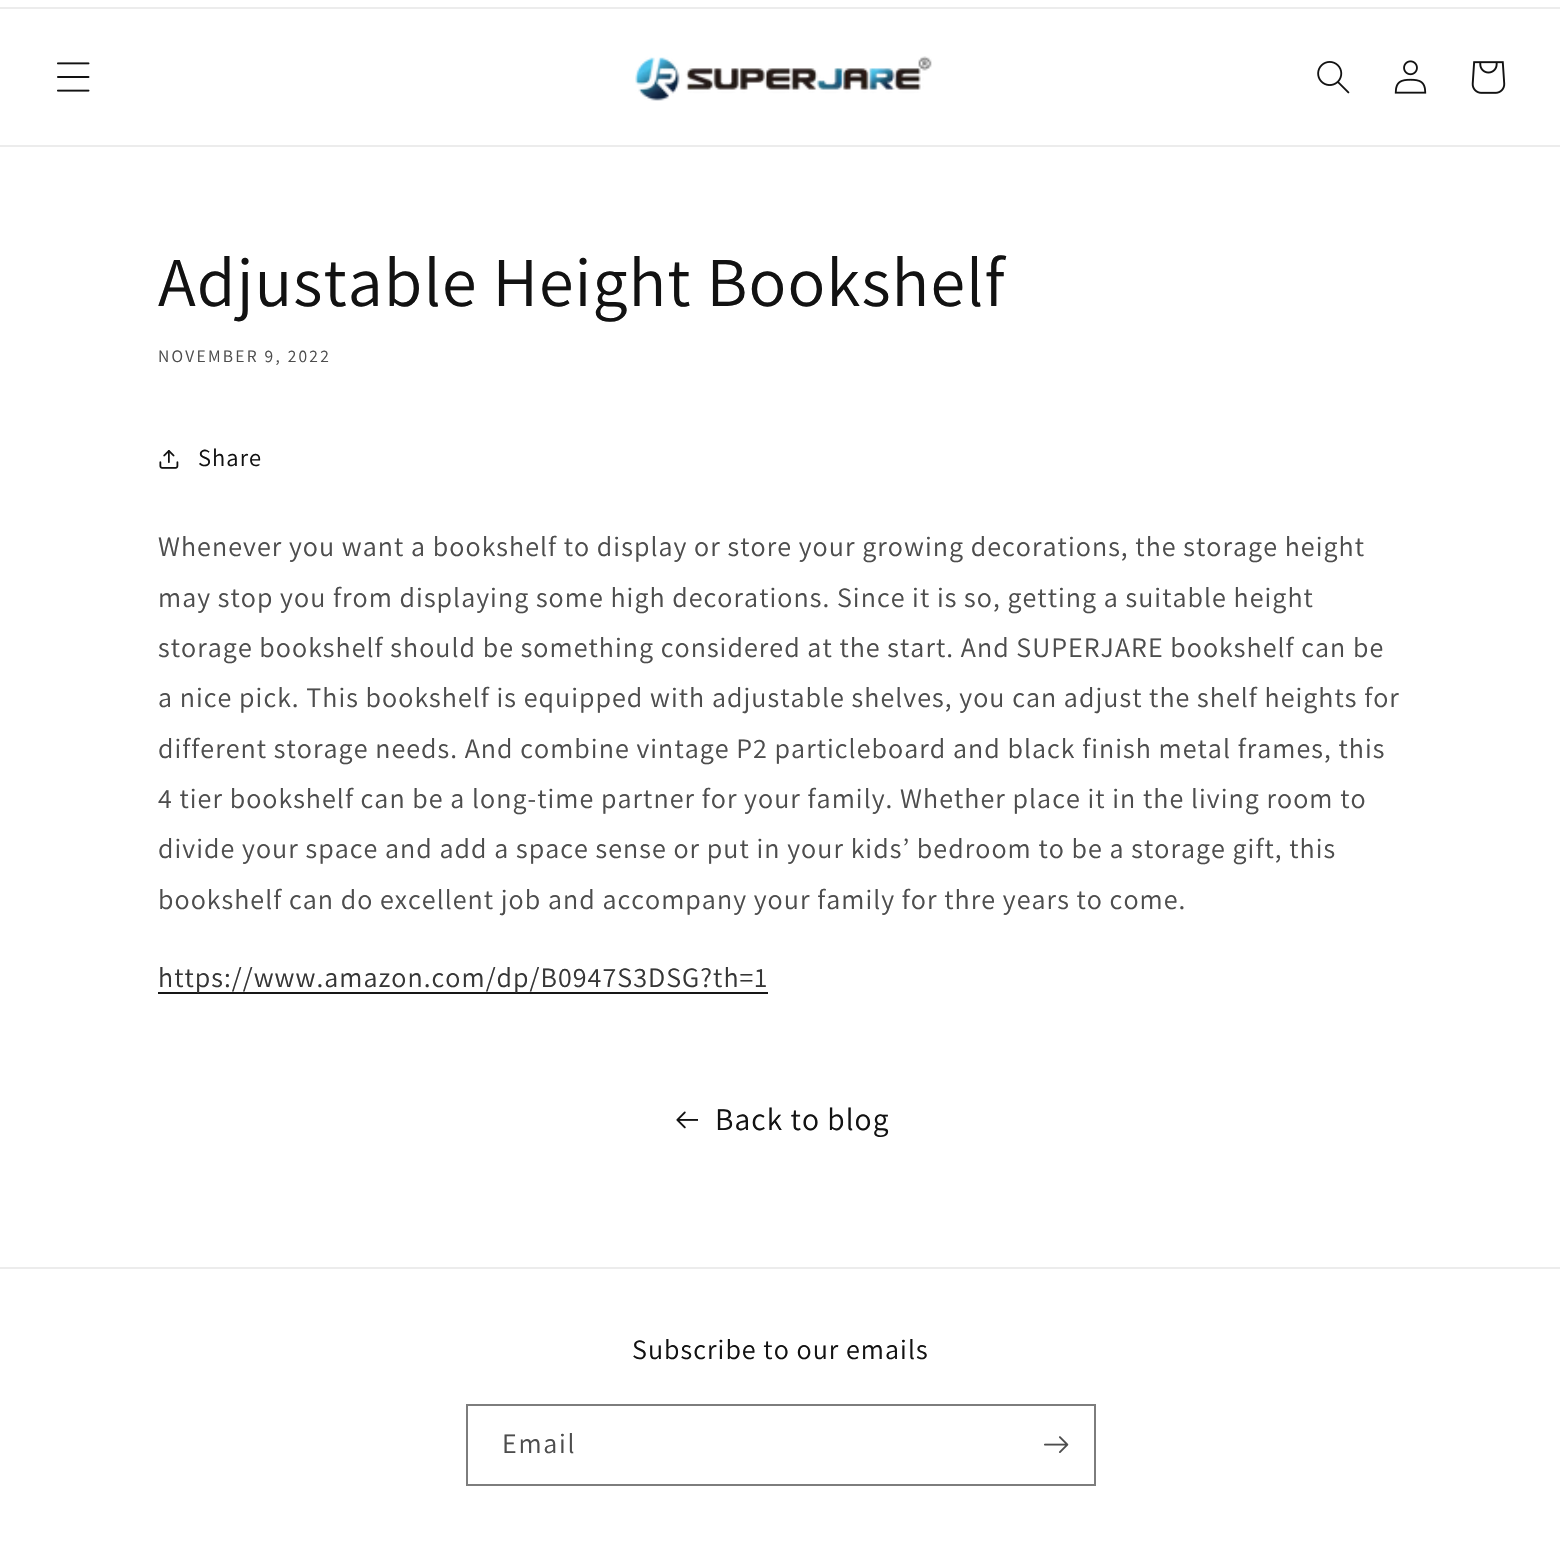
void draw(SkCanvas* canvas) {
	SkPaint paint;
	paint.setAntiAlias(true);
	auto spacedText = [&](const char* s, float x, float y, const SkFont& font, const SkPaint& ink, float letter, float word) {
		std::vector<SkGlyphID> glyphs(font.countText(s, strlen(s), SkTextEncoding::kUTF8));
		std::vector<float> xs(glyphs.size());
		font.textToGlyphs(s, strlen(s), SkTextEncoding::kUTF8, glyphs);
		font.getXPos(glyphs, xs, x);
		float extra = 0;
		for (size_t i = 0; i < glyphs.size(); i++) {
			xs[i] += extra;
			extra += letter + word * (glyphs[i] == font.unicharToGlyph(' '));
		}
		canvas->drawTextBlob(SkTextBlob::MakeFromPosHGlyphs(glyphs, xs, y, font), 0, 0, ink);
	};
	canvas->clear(0xffffffff);
	paint.setColor(0xffececec);
	canvas->drawRect(SkRect::MakeXYWH(0, 7, 1560, 2), paint);
	canvas->drawRect(SkRect::MakeXYWH(0, 145, 1560, 2), paint);
	canvas->drawImageRect(SkImages::DeferredFromEncodedData(SkData::MakeFromFileName("img1.png")), SkRect::MakeXYWH(57, 62, 33, 30), SkSamplingOptions());
	canvas->drawImageRect(SkImages::DeferredFromEncodedData(SkData::MakeFromFileName("img2.png")), SkRect::MakeXYWH(635, 56, 297, 45), SkSamplingOptions());
	canvas->drawImageRect(SkImages::DeferredFromEncodedData(SkData::MakeFromFileName("img3.png")), SkRect::MakeXYWH(1317, 61, 33, 33), SkSamplingOptions());
	canvas->drawImageRect(SkImages::DeferredFromEncodedData(SkData::MakeFromFileName("img4.png")), SkRect::MakeXYWH(1394, 60, 33, 34), SkSamplingOptions());
	canvas->drawImageRect(SkImages::DeferredFromEncodedData(SkData::MakeFromFileName("img5.png")), SkRect::MakeXYWH(1471, 61, 35, 33), SkSamplingOptions());
	SkFont f1(fontMgr->matchFamilyStyle("Assistant", SkFontStyle::Normal()), 70);
	f1.setSubpixel(true);
	paint.setColor(0xff121212);
	spacedText("Adjustable Height Bookshelf", 158, 306, f1, paint, 1.05, 0);
	SkFont f2(fontMgr->matchFamilyStyle("Assistant", SkFontStyle::Normal()), 17.5);
	f2.setSubpixel(true);
	paint.setColor(0xff4d4d4d);
	spacedText("NOVEMBER 9, 2022", 158, 362, f2, paint, 2.25, 0);
	canvas->drawImageRect(SkImages::DeferredFromEncodedData(SkData::MakeFromFileName("img6.png")), SkRect::MakeXYWH(159, 450, 20, 19), SkSamplingOptions());
	SkFont f3(fontMgr->matchFamilyStyle("Assistant", SkFontStyle::Normal()), 24.5);
	f3.setSubpixel(true);
	paint.setColor(0xff121212);
	spacedText("Share", 198, 466, f3, paint, 1.05, 0);
	SkFont f4(fontMgr->matchFamilyStyle("Assistant", SkFontStyle::Normal()), 28);
	f4.setSubpixel(true);
	paint.setColor(0xff4d4d4d);
	spacedText("Whenever you want a bookshelf to display or store your growing decorations, the storage height", 158, 556, f4, paint, 1.05, 0);
	spacedText("may stop you from displaying some high decorations. Since it is so, getting a suitable height", 158, 607, f4, paint, 1.05, 0);
	spacedText("storage bookshelf should be something considered at the start. And SUPERJARE bookshelf can be", 158, 657, f4, paint, 1.05, 0);
	spacedText("a nice pick. This bookshelf is equipped with adjustable shelves, you can adjust the shelf heights for", 158, 707, f4, paint, 1.05, 0);
	spacedText("different storage needs. And combine vintage P2 particleboard and black finish metal frames, this", 158, 758, f4, paint, 1.05, 0);
	spacedText("4 tier bookshelf can be a long-time partner for your family. Whether place it in the living room to", 158, 808, f4, paint, 1.05, 0);
	spacedText("divide your space and add a space sense or put in your kids’ bedroom to be a storage gift, this", 158, 858, f4, paint, 1.05, 0);
	spacedText("bookshelf can do excellent job and accompany your family for thre years to come.", 158, 909, f4, paint, 1.05, 0);
	paint.setColor(0xff171717);
	canvas->drawRect(SkRect::MakeXYWH(158, 992, 610, 2), paint);
	paint.setColor(0xff363636);
	spacedText("https://www.amazon.com/dp/B0947S3DSG?th=1", 158, 987, f4, paint, 1.05, 0);
	canvas->drawImageRect(SkImages::DeferredFromEncodedData(SkData::MakeFromFileName("img7.png")), SkRect::MakeXYWH(676, 1111, 22, 18), SkSamplingOptions());
	SkFont f5(fontMgr->matchFamilyStyle("Assistant", SkFontStyle::Normal()), 31.5);
	f5.setSubpixel(true);
	paint.setColor(0xff121212);
	spacedText("Back to blog", 715, 1130, f5, paint, 1.05, 0);
	paint.setColor(0xffececec);
	canvas->drawRect(SkRect::MakeXYWH(0, 1267, 1560, 2), paint);
	paint.setColor(0xff121212);
	spacedText("Subscribe to our emails", 632, 1359, f4, paint, 1.05, 0);
	paint.setStroke(true);
	paint.setStrokeWidth(2);
	paint.setColor(0xff7d7d7d);
	canvas->drawRect(SkRect::MakeXYWH(467, 1405, 628, 80), paint);
	paint.setStroke(false);
	paint.setColor(0xff4d4d4d);
	spacedText("Email", 502, 1453, f4, paint, 1.75, 0);
	canvas->drawImageRect(SkImages::DeferredFromEncodedData(SkData::MakeFromFileName("img8.png")), SkRect::MakeXYWH(1044, 1436, 25, 17), SkSamplingOptions());
}
